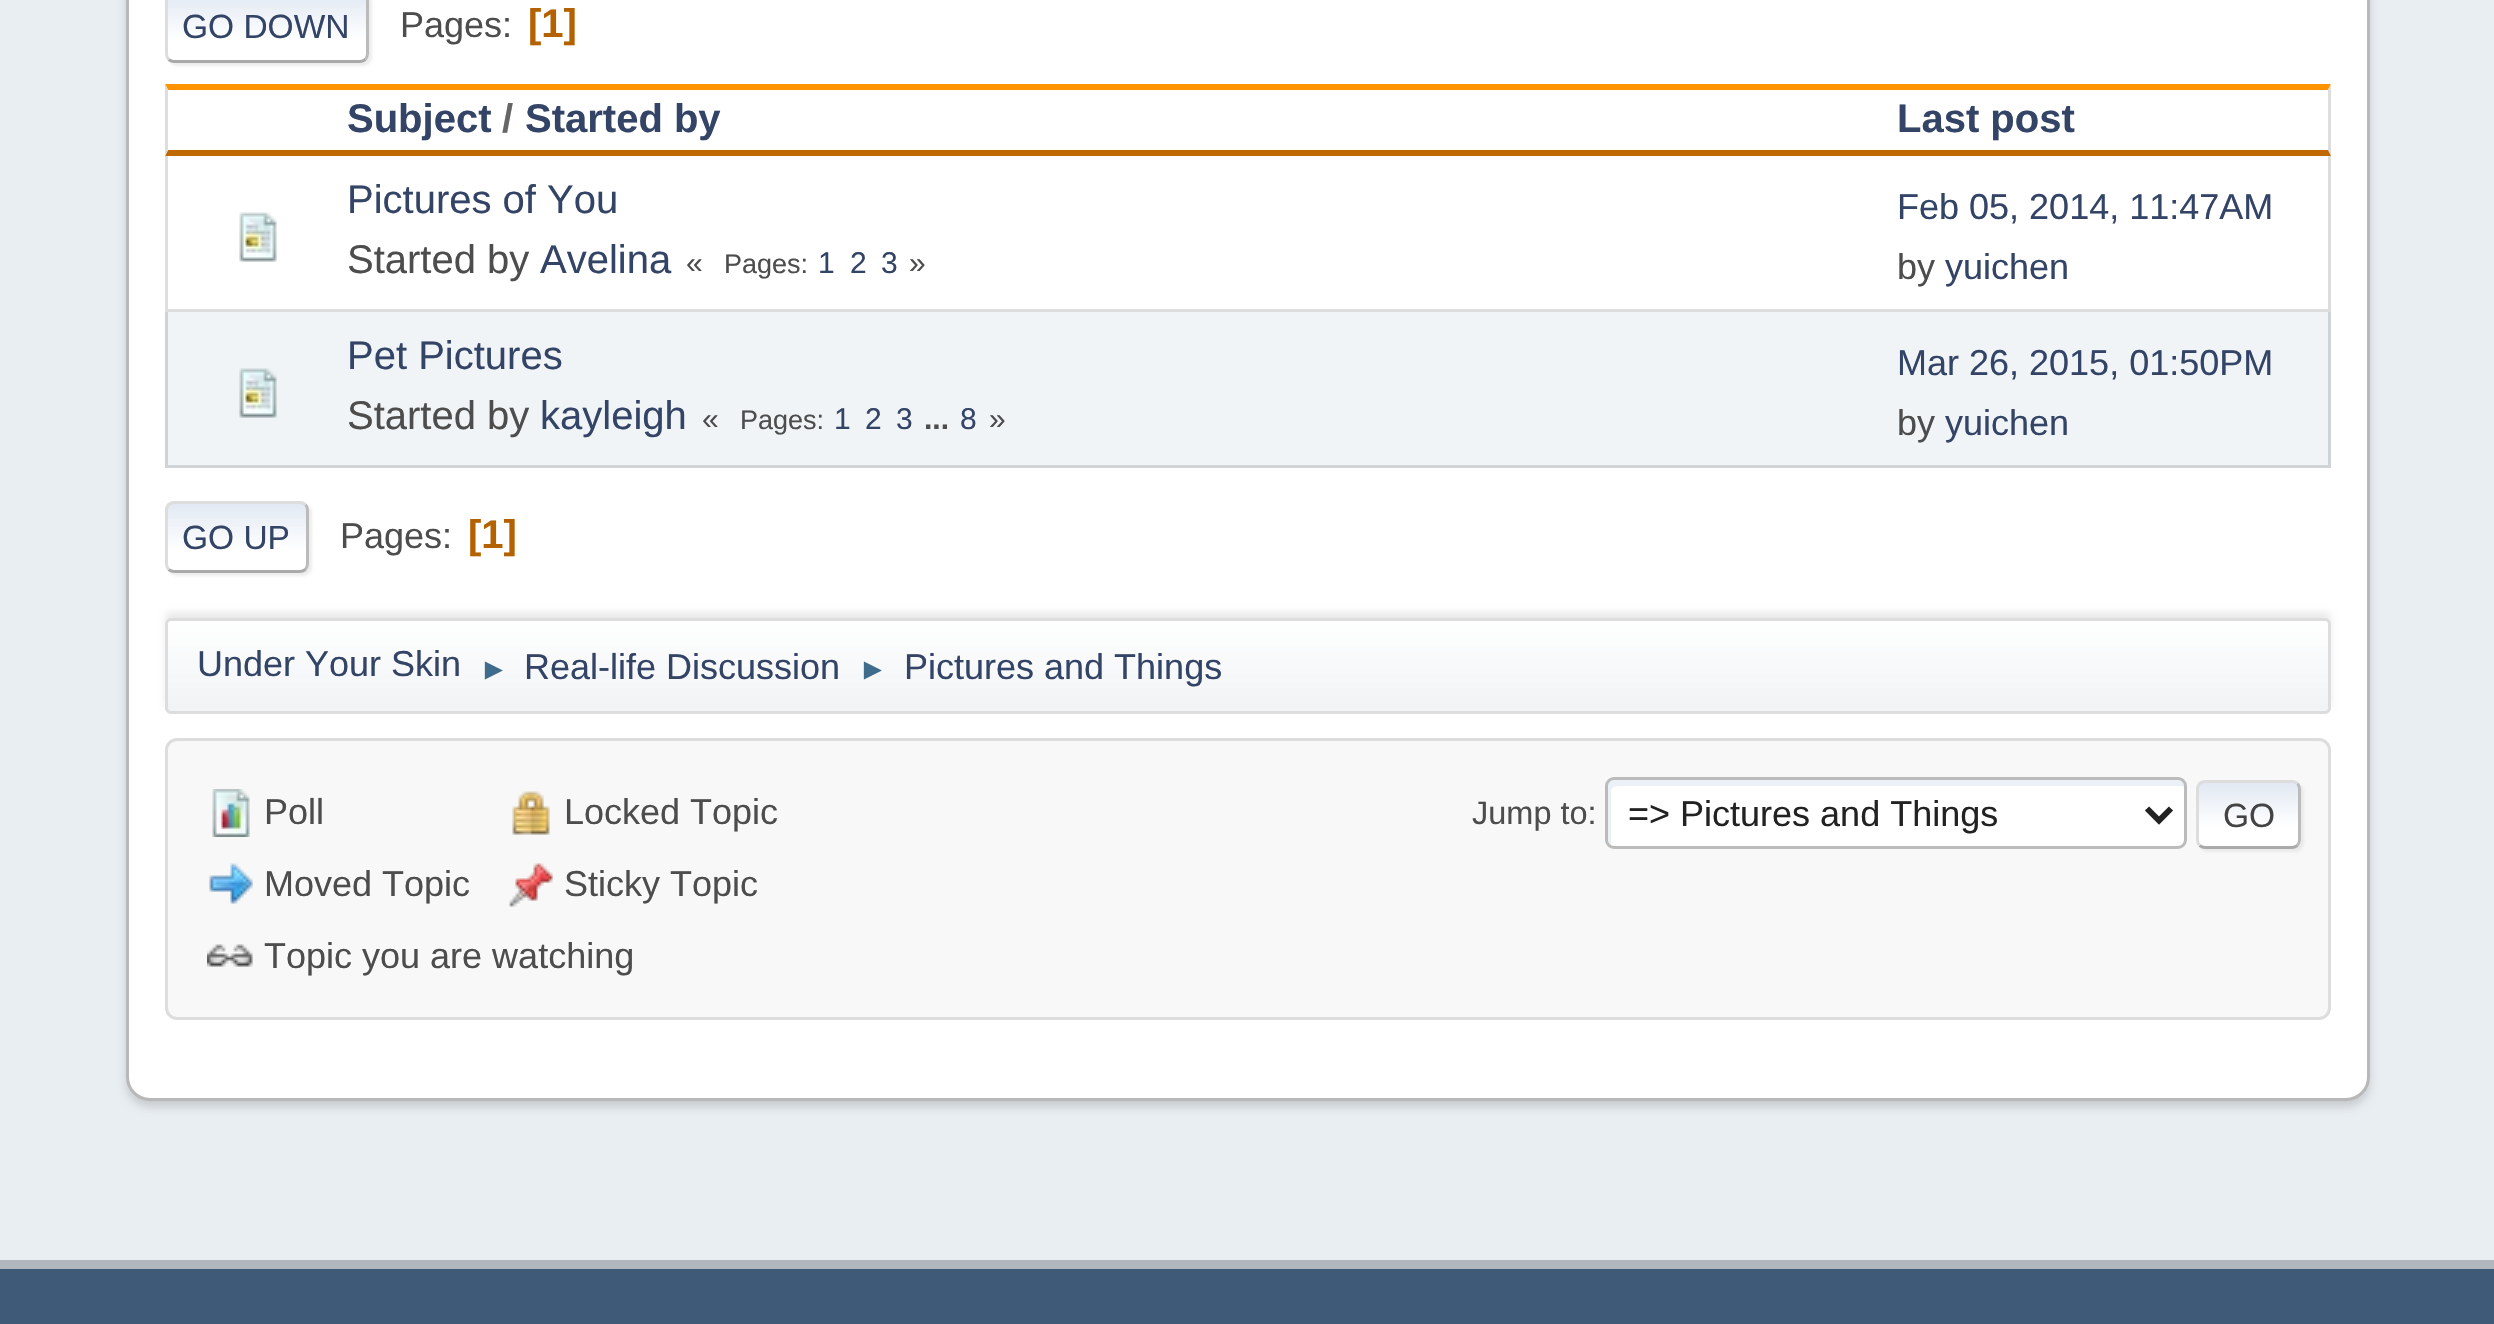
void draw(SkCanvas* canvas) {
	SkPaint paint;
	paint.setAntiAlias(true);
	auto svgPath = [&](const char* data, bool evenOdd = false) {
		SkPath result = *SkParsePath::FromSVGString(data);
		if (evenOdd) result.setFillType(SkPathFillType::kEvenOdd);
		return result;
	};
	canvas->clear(0xffe9eef2);
	paint.setColor(0x24000000);
	paint.setMaskFilter(SkMaskFilter::MakeBlur(kNormal_SkBlurStyle, 4.5));
	canvas->drawRoundRect(SkRect::MakeXYWH(126, -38, 2244, 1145), 24, 24, paint);
	paint.setMaskFilter(nullptr);
	paint.setColor(0xffffffff);
	canvas->drawRoundRect(SkRect::MakeXYWH(127.5, -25.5, 2241, 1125), 22.5, 22.5, paint);
	paint.setStroke(true);
	paint.setStrokeWidth(3);
	paint.setColor(0xffb8b8b8);
	canvas->drawRoundRect(SkRect::MakeXYWH(127.5, -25.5, 2241, 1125), 22.5, 22.5, paint);
	paint.setStroke(false);
	paint.setColor(0x91dddddd);
	paint.setMaskFilter(SkMaskFilter::MakeBlur(kNormal_SkBlurStyle, 1.5));
	canvas->drawRoundRect(SkRect::MakeXYWH(168, -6, 204, 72), 9, 9, paint);
	paint.setMaskFilter(nullptr);
	canvas->save();
	canvas->clipPath(svgPath("M174-9H360C365-9 369-5 369 0V54C369 59 365 63 360 63H174C169 63 165 59 165 54V0C165-5 169-9 174-9Z"), true);
	{
		const SkColor colors[] = {0xffe2e9f3, 0xffffffff};
		const float stops[] = {0, 0.7};
		const SkPoint ends[] = {{267, -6}, {267, 60}};
		paint.setShader(SkGradientShader::MakeLinear(ends, colors, stops, 2, SkTileMode::kClamp));
		paint.setAlpha(255);
	}
	canvas->drawRect(SkRect::MakeXYWH(165, 0, 204, 60), paint);
	canvas->restore();
	paint.setStroke(true);
	paint.setShader(nullptr);
	paint.setColor(0xffbbbbbb);
	canvas->drawPath(svgPath("M365.5-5.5C366.5-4 367.5-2 367.5 0V54C367.5 56 366.5 58 365.5 59.5"), paint);
	paint.setColor(0xffaaaaaa);
	canvas->drawPath(svgPath("M365.5 59.5C364 60.5 362 61.5 360 61.5H174C172 61.5 170 60.5 168.5 59.5"), paint);
	paint.setColor(0xffdddddd);
	canvas->drawPath(svgPath("M168.5 59.5C167.5 58 166.5 56 166.5 54V0C166.5-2 167.5-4 168.5-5.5C170-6.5 172-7.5 174-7.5H360C362-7.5 364-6.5 365.5-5.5"), paint);
	SkFont f1(fontMgr->matchFamilyStyle("Liberation Sans", SkFontStyle::Normal()), 33.5);
	f1.setSubpixel(true);
	paint.setStroke(false);
	paint.setColor(0xff334466);
	canvas->drawString("GO DOWN", 182, 38, f1, paint);
	SkFont f2(fontMgr->matchFamilyStyle("Liberation Sans", SkFontStyle::Normal()), 36);
	f2.setSubpixel(true);
	paint.setColor(0xff4d4d4d);
	canvas->drawString("Pages:", 400, 37, f2, paint);
	SkFont f3(fontMgr->matchFamilyStyle("Liberation Sans", SkFontStyle::Bold()), 40);
	f3.setSubpixel(true);
	paint.setColor(0xffb46100);
	canvas->drawString("[1]", 528, 37, f3, paint);
	paint.setColor(0xffff9400);
	canvas->drawPath(svgPath("M165 84H2331L2328 90H168Z"), paint);
	paint.setColor(0xffdddddd);
	canvas->drawPath(svgPath("M2331 84V156L2328 150V90Z"), paint);
	paint.setColor(0xffbf6900);
	canvas->drawPath(svgPath("M2331 156H165L168 150H2328Z"), paint);
	paint.setColor(0xffdddddd);
	canvas->drawPath(svgPath("M165 156V84L168 90V150Z"), paint);
	paint.setColor(0xff334466);
	canvas->drawString("Subject", 347, 132, f3, paint);
	paint.setColor(0xff666666);
	canvas->drawString("/", 502, 132, f3, paint);
	paint.setColor(0xff334466);
	canvas->drawString("Started by", 525, 132, f3, paint);
	canvas->drawString("Last post", 1897, 132, f3, paint);
	paint.setColor(0xffdcdcdc);
	canvas->drawPath(svgPath("M2331 156V312L2328 309V156Z"), paint);
	paint.setColor(0x21000000);
	canvas->drawPath(svgPath("M2331 312H165L168 309H2328Z"), paint);
	canvas->drawPath(svgPath("M165 312V156H168V309Z"), paint);
	canvas->drawImageRect(SkImages::DeferredFromEncodedData(SkData::MakeFromFileName("img1.png")), SkRect::MakeXYWH(239, 212, 38, 50), SkSamplingOptions());
	SkFont f4(fontMgr->matchFamilyStyle("Liberation Sans", SkFontStyle::Normal()), 40);
	f4.setSubpixel(true);
	paint.setColor(0xff334466);
	canvas->drawString("Pictures of You", 347, 213, f4, paint);
	paint.setColor(0xff4d4d4d);
	canvas->drawString("Started by", 347, 273, f4, paint);
	paint.setColor(0xff334466);
	canvas->drawString("Avelina", 540, 273, f4, paint);
	SkFont f5(fontMgr->matchFamilyStyle("Liberation Sans", SkFontStyle::Normal()), 30);
	f5.setSubpixel(true);
	paint.setColor(0xff4d4d4d);
	canvas->drawString("«", 686, 273, f5, paint);
	SkFont f6(fontMgr->matchFamilyStyle("Liberation Sans", SkFontStyle::Normal()), 27);
	f6.setSubpixel(true);
	canvas->drawString("Pages:", 724, 273, f6, paint);
	paint.setColor(0xff334466);
	canvas->drawString("1", 818, 273, f5, paint);
	canvas->drawString("2", 850, 273, f5, paint);
	canvas->drawString("3", 881, 273, f5, paint);
	paint.setColor(0xff4d4d4d);
	canvas->drawString("»", 909, 273, f5, paint);
	paint.setColor(0xff334466);
	canvas->drawString("Feb 05, 2014, 11:47AM", 1897, 219, f2, paint);
	paint.setColor(0xff4d4d4d);
	canvas->drawString("by", 1897, 279, f2, paint);
	paint.setColor(0xff334466);
	canvas->drawString("yuichen", 1945, 279, f2, paint);
	paint.setColor(0xfff0f4f7);
	canvas->drawRect(SkRect::MakeXYWH(165, 312, 2166, 156), paint);
	paint.setColor(0xffd1d4d7);
	canvas->drawPath(svgPath("M2331 312V468L2328 465V312Z"), paint);
	paint.setColor(0x21000000);
	canvas->drawPath(svgPath("M2331 468H165L168 465H2328Z"), paint);
	canvas->drawPath(svgPath("M165 468V312H168V465Z"), paint);
	canvas->drawImageRect(SkImages::DeferredFromEncodedData(SkData::MakeFromFileName("img2.png")), SkRect::MakeXYWH(239, 368, 38, 50), SkSamplingOptions());
	paint.setColor(0xff334466);
	canvas->drawString("Pet Pictures", 347, 369, f4, paint);
	paint.setColor(0xff4d4d4d);
	canvas->drawString("Started by", 347, 429, f4, paint);
	paint.setColor(0xff334466);
	canvas->drawString("kayleigh", 540, 429, f4, paint);
	paint.setColor(0xff4d4d4d);
	canvas->drawString("«", 702, 429, f5, paint);
	canvas->drawString("Pages:", 740, 429, f6, paint);
	paint.setColor(0xff334466);
	canvas->drawString("1", 834, 429, f5, paint);
	canvas->drawString("2", 865, 429, f5, paint);
	canvas->drawString("3", 896, 429, f5, paint);
	SkFont f7(fontMgr->matchFamilyStyle("Liberation Sans", SkFontStyle::Bold()), 30);
	f7.setSubpixel(true);
	paint.setColor(0xff4d4d4d);
	canvas->drawString("...", 924, 429, f7, paint);
	paint.setColor(0xff334466);
	canvas->drawString("8", 960, 429, f5, paint);
	paint.setColor(0xff4d4d4d);
	canvas->drawString("»", 989, 429, f5, paint);
	paint.setColor(0xff334466);
	canvas->drawString("Mar 26, 2015, 01:50PM", 1897, 375, f2, paint);
	paint.setColor(0xff4d4d4d);
	canvas->drawString("by", 1897, 435, f2, paint);
	paint.setColor(0xff334466);
	canvas->drawString("yuichen", 1945, 435, f2, paint);
	paint.setColor(0x91dddddd);
	paint.setMaskFilter(SkMaskFilter::MakeBlur(kNormal_SkBlurStyle, 1.5));
	canvas->drawRoundRect(SkRect::MakeXYWH(168, 504, 144, 72), 9, 9, paint);
	paint.setMaskFilter(nullptr);
	canvas->save();
	canvas->clipPath(svgPath("M174 501H300C305 501 309 505 309 510V564C309 569 305 573 300 573H174C169 573 165 569 165 564V510C165 505 169 501 174 501Z"), true);
	{
		const SkColor colors[] = {0xffe2e9f3, 0xffffffff};
		const float stops[] = {0, 0.7};
		const SkPoint ends[] = {{237, 504}, {237, 570}};
		paint.setShader(SkGradientShader::MakeLinear(ends, colors, stops, 2, SkTileMode::kClamp));
		paint.setAlpha(255);
	}
	canvas->drawRect(SkRect::MakeXYWH(165, 504, 144, 66), paint);
	canvas->restore();
	paint.setStroke(true);
	paint.setShader(nullptr);
	paint.setColor(0xffbbbbbb);
	canvas->drawPath(svgPath("M305.5 504.5C306.5 506 307.5 508 307.5 510V564C307.5 566 306.5 568 305.5 569.5"), paint);
	paint.setColor(0xffaaaaaa);
	canvas->drawPath(svgPath("M305.5 569.5C304 570.5 302 571.5 300 571.5H174C172 571.5 170 570.5 168.5 569.5"), paint);
	paint.setColor(0xffdddddd);
	canvas->drawPath(svgPath("M168.5 569.5C167.5 568 166.5 566 166.5 564V510C166.5 508 167.5 506 168.5 504.5C170 503.5 172 502.5 174 502.5H300C302 502.5 304 503.5 305.5 504.5"), paint);
	paint.setStroke(false);
	paint.setColor(0xff334466);
	canvas->drawString("GO UP", 182, 549, f1, paint);
	paint.setColor(0xff4d4d4d);
	canvas->drawString("Pages:", 340, 548, f2, paint);
	paint.setColor(0xffb46100);
	canvas->drawString("[1]", 468, 548, f3, paint);
	paint.setColor(0x14000000);
	paint.setMaskFilter(SkMaskFilter::MakeBlur(kNormal_SkBlurStyle, 3));
	canvas->drawRoundRect(SkRect::MakeXYWH(165, 612, 2166, 96), 6, 6, paint);
	paint.setMaskFilter(nullptr);
	canvas->save();
	canvas->clipPath(svgPath("M171 618H2325C2328.5 618 2331 620.5 2331 624V708C2331 711.5 2328.5 714 2325 714H171C167.5 714 165 711.5 165 708V624C165 620.5 167.5 618 171 618Z"), true);
	{
		const SkColor colors[] = {0xffffffff, 0xfff1f3f5};
		const float stops[] = {0, 0.95};
		const SkPoint ends[] = {{1248, 621}, {1248, 711}};
		paint.setShader(SkGradientShader::MakeLinear(ends, colors, stops, 2, SkTileMode::kClamp));
		paint.setAlpha(255);
	}
	canvas->drawRect(SkRect::MakeXYWH(165, 621, 2166, 90), paint);
	canvas->restore();
	paint.setStroke(true);
	paint.setShader(nullptr);
	paint.setColor(0xffdddddd);
	canvas->drawRoundRect(SkRect::MakeXYWH(166.5, 619.5, 2163, 93), 4.5, 4.5, paint);
	paint.setStroke(false);
	paint.setColor(0xff334466);
	canvas->drawString("Under Your Skin", 197, 676, f2, paint);
	paint.setColor(0xff3f6b8c);
	canvas->drawString("►", 479, 679, f5, paint);
	paint.setColor(0xff334466);
	canvas->drawString("Real-life Discussion", 524, 679, f2, paint);
	paint.setColor(0xff3f6b8c);
	canvas->drawString("►", 858, 679, f5, paint);
	paint.setColor(0xff334466);
	canvas->drawString("Pictures and Things", 904, 679, f2, paint);
	paint.setColor(0xfff8f8f8);
	canvas->drawRoundRect(SkRect::MakeXYWH(166.5, 739.5, 2163, 279), 10.5, 10.5, paint);
	paint.setStroke(true);
	paint.setColor(0xffdddddd);
	canvas->drawRoundRect(SkRect::MakeXYWH(166.5, 739.5, 2163, 279), 10.5, 10.5, paint);
	canvas->drawImageRect(SkImages::DeferredFromEncodedData(SkData::MakeFromFileName("img3.png")), SkRect::MakeXYWH(512, 791, 38, 44), SkSamplingOptions());
	paint.setStroke(false);
	paint.setColor(0xff4d4d4d);
	canvas->drawString("Locked Topic", 564, 824, f2, paint);
	canvas->drawImageRect(SkImages::DeferredFromEncodedData(SkData::MakeFromFileName("img4.png")), SkRect::MakeXYWH(509, 863, 44, 44), SkSamplingOptions());
	canvas->drawString("Sticky Topic", 564, 896, f2, paint);
	canvas->drawImageRect(SkImages::DeferredFromEncodedData(SkData::MakeFromFileName("img5.png")), SkRect::MakeXYWH(207, 944, 46, 23), SkSamplingOptions());
	canvas->drawString("Topic you are watching", 264, 968, f2, paint);
	canvas->drawImageRect(SkImages::DeferredFromEncodedData(SkData::MakeFromFileName("img6.png")), SkRect::MakeXYWH(212, 789, 38, 48), SkSamplingOptions());
	canvas->drawString("Poll", 264, 824, f2, paint);
	canvas->drawImageRect(SkImages::DeferredFromEncodedData(SkData::MakeFromFileName("img7.png")), SkRect::MakeXYWH(209, 863, 44, 41), SkSamplingOptions());
	canvas->drawString("Moved Topic", 264, 896, f2, paint);
	SkFont f8(fontMgr->matchFamilyStyle("Liberation Sans", SkFontStyle::Normal()), 32.5);
	f8.setSubpixel(true);
	canvas->drawString("Jump to:", 1472, 824, f8, paint);
	paint.setColor(0xffffffff);
	canvas->drawRoundRect(SkRect::MakeXYWH(1605, 777, 582, 72), 9, 9, paint);
	paint.setColor(0xffecf1f8);
	canvas->drawPath(svgPath("M1617 786H2181L2184 787V786C2184 783 2181 780 2178 780H1614C1611 780 1608 783 1608 786V840C1608 842 1609 844 1611 845V792C1611 789 1614 786 1617 786Z"), paint);
	paint.setStroke(true);
	paint.setColor(0xffbbbbbb);
	canvas->drawRoundRect(SkRect::MakeXYWH(1606.5, 778.5, 579, 69), 7.5, 7.5, paint);
	paint.setStrokeWidth(6);
	paint.setColor(0xff222222);
	canvas->drawPath(svgPath("M2147 808.5L2159 820.5L2171 808.5"), paint);
	paint.setStroke(false);
	canvas->drawString("=> Pictures and Things", 1628, 826, f2, paint);
	paint.setColor(0x91dddddd);
	paint.setMaskFilter(SkMaskFilter::MakeBlur(kNormal_SkBlurStyle, 1.5));
	canvas->drawRoundRect(SkRect::MakeXYWH(2199, 783, 105, 69), 9, 9, paint);
	paint.setMaskFilter(nullptr);
	canvas->save();
	canvas->clipPath(svgPath("M2205 780H2292C2297 780 2301 784 2301 789V840C2301 845 2297 849 2292 849H2205C2200 849 2196 845 2196 840V789C2196 784 2200 780 2205 780Z"), true);
	{
		const SkColor colors[] = {0xffe2e9f3, 0xffffffff};
		const float stops[] = {0, 0.7};
		const SkPoint ends[] = {{2249, 783}, {2249, 846}};
		paint.setShader(SkGradientShader::MakeLinear(ends, colors, stops, 2, SkTileMode::kClamp));
		paint.setAlpha(255);
	}
	canvas->drawRect(SkRect::MakeXYWH(2196, 783, 105, 63), paint);
	canvas->restore();
	paint.setStroke(true);
	paint.setStrokeWidth(3);
	paint.setShader(nullptr);
	paint.setColor(0xffbbbbbb);
	canvas->drawPath(svgPath("M2297.5 783.5C2298.5 785 2299.5 787 2299.5 789V840C2299.5 842 2298.5 844 2297.5 845.5"), paint);
	paint.setColor(0xffaaaaaa);
	canvas->drawPath(svgPath("M2297.5 845.5C2296 846.5 2294 847.5 2292 847.5H2205C2203 847.5 2201 846.5 2199.5 845.5"), paint);
	paint.setColor(0xffdddddd);
	canvas->drawPath(svgPath("M2199.5 845.5C2198.5 844 2197.5 842 2197.5 840V789C2197.5 787 2198.5 785 2199.5 783.5C2201 782.5 2203 781.5 2205 781.5H2292C2294 781.5 2296 782.5 2297.5 783.5"), paint);
	paint.setStroke(false);
	paint.setColor(0xff444444);
	canvas->drawString("GO", 2223, 827, f1, paint);
	paint.setColor(0xff3e5a78);
	canvas->drawRect(SkRect::MakeXYWH(0, 1269, 2494, 55), paint);
	paint.setColor(0xffb2b6bd);
	canvas->drawRect(SkRect::MakeXYWH(0, 1260, 2494, 9), paint);
}
